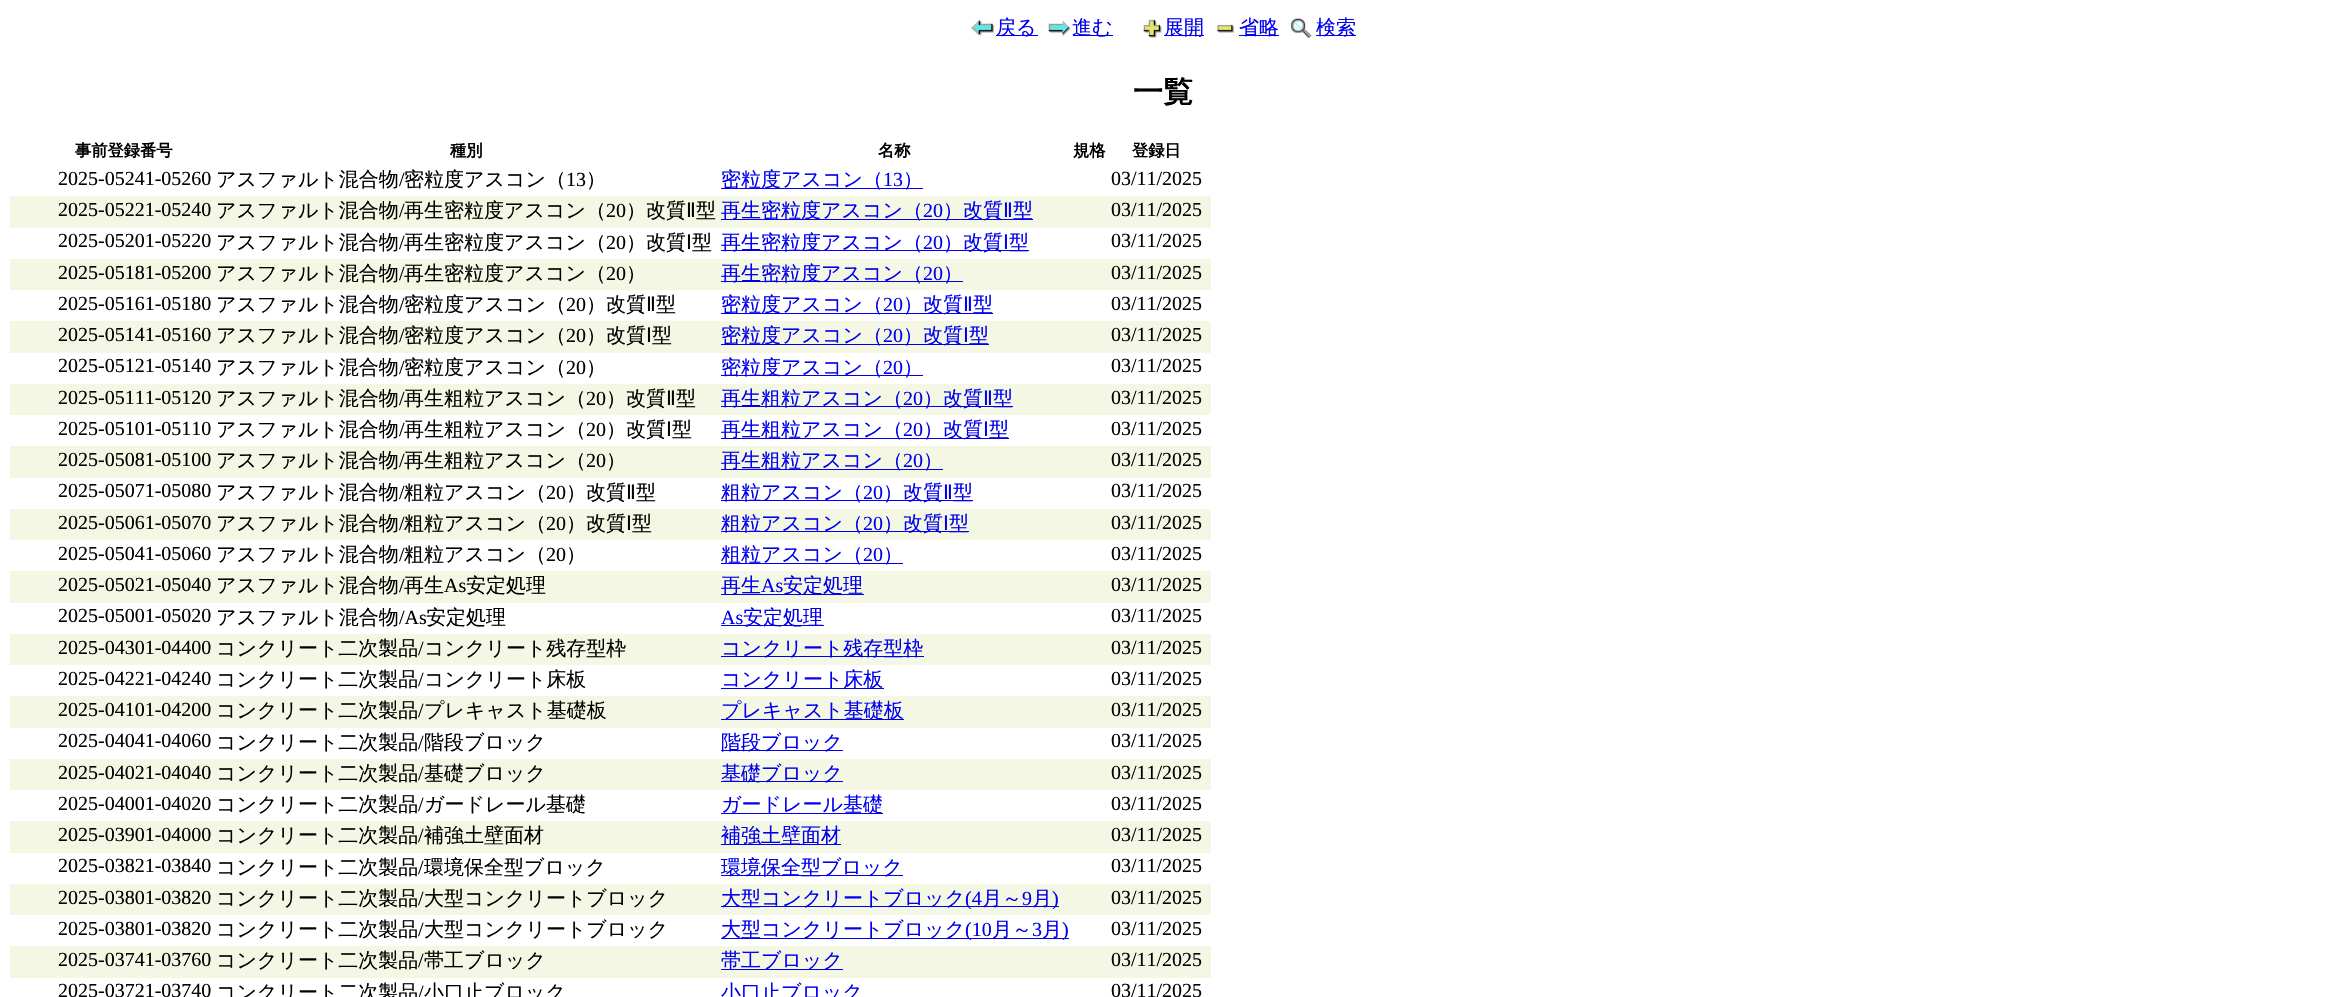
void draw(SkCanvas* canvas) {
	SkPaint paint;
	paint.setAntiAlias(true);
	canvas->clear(0xffffffff);
	canvas->drawImageRect(SkImages::DeferredFromEncodedData(SkData::MakeFromFileName("img1.png")), SkRect::MakeXYWH(971, 19, 23, 17), SkSamplingOptions());
	paint.setColor(0xff0000ee);
	canvas->drawRect(SkRect::MakeXYWH(996, 35, 42, 1), paint);
	SkFont f1(fontMgr->matchFamilyStyle("WenQuanYi Zen Hei", SkFontStyle(500, SkFontStyle::kNormal_Width, SkFontStyle::kUpright_Slant)), 20);
	f1.setSubpixel(true);
	canvas->drawString("戻る", 996, 34, f1, paint);
	canvas->drawImageRect(SkImages::DeferredFromEncodedData(SkData::MakeFromFileName("img2.png")), SkRect::MakeXYWH(1048, 21, 23, 16), SkSamplingOptions());
	canvas->drawRect(SkRect::MakeXYWH(1073, 35, 40, 1), paint);
	canvas->drawString("進む", 1072, 34, f1, paint);
	canvas->drawImageRect(SkImages::DeferredFromEncodedData(SkData::MakeFromFileName("img3.png")), SkRect::MakeXYWH(1143, 19, 19, 19), SkSamplingOptions());
	canvas->drawRect(SkRect::MakeXYWH(1164, 35, 40, 1), paint);
	canvas->drawString("展開", 1164, 34, f1, paint);
	canvas->drawImageRect(SkImages::DeferredFromEncodedData(SkData::MakeFromFileName("img4.png")), SkRect::MakeXYWH(1217, 24, 17, 9), SkSamplingOptions());
	canvas->drawRect(SkRect::MakeXYWH(1239, 35, 40, 1), paint);
	canvas->drawString("省略", 1239, 34, f1, paint);
	canvas->drawImageRect(SkImages::DeferredFromEncodedData(SkData::MakeFromFileName("img5.png")), SkRect::MakeXYWH(1291, 18, 21, 20), SkSamplingOptions());
	canvas->drawRect(SkRect::MakeXYWH(1316, 35, 40, 1), paint);
	canvas->drawString("検索", 1316, 34, f1, paint);
	SkFont f2(fontMgr->matchFamilyStyle("WenQuanYi Zen Hei", SkFontStyle::Bold()), 30);
	f2.setSubpixel(true);
	paint.setColor(0xff000000);
	canvas->drawString("一覧", 1133, 102, f2, paint);
	SkFont f3(fontMgr->matchFamilyStyle("WenQuanYi Zen Hei", SkFontStyle::Bold()), 16.25);
	f3.setSubpixel(true);
	canvas->drawString("事前登録番号", 75, 156, f3, paint);
	canvas->drawString("種別", 450, 156, f3, paint);
	canvas->drawString("名称", 878, 156, f3, paint);
	canvas->drawString("規格", 1073, 156, f3, paint);
	canvas->drawString("登録日", 1132, 156, f3, paint);
	SkFont f4(fontMgr->matchFamilyStyle("Liberation Serif", SkFontStyle::Normal()), 20);
	f4.setSubpixel(true);
	canvas->drawString("2025-05241-05260", 58, 185, f4, paint);
	canvas->drawString("アスファルト混合物", 216, 186, f1, paint);
	canvas->drawString("/", 399, 186, f4, paint);
	canvas->drawString("密粒度アスコン（", 404, 186, f1, paint);
	canvas->drawString("13", 566, 186, f4, paint);
	canvas->drawString("）", 586, 186, f1, paint);
	paint.setColor(0xff0000ee);
	canvas->drawRect(SkRect::MakeXYWH(721, 188, 202, 1), paint);
	canvas->drawString("密粒度アスコン（", 721, 186, f1, paint);
	canvas->drawString("13", 883, 186, f4, paint);
	canvas->drawString("）", 903, 186, f1, paint);
	paint.setColor(0xff000000);
	canvas->drawString("03/11/2025", 1111, 185, f4, paint);
	paint.setColor(0xfff3f7e3);
	canvas->drawRect(SkRect::MakeXYWH(10, 196, 1201, 32), paint);
	paint.setColor(0xff000000);
	canvas->drawString("2025-05221-05240", 58, 216, f4, paint);
	canvas->drawString("アスファルト混合物", 216, 217, f1, paint);
	canvas->drawString("/", 399, 217, f4, paint);
	canvas->drawString("再生密粒度アスコン（", 404, 217, f1, paint);
	canvas->drawString("20", 606, 217, f4, paint);
	canvas->drawString("）改質", 626, 217, f1, paint);
	SkFont f5(fontMgr->matchFamilyStyle("DejaVu Sans", SkFontStyle::Normal()), 20);
	f5.setSubpixel(true);
	canvas->drawString("Ⅱ", 686, 217, f5, paint);
	canvas->drawString("型", 696, 217, f1, paint);
	paint.setColor(0xff0000ee);
	canvas->drawRect(SkRect::MakeXYWH(721, 219, 312, 1), paint);
	canvas->drawString("再生密粒度アスコン（", 721, 217, f1, paint);
	canvas->drawString("20", 923, 217, f4, paint);
	canvas->drawString("）改質", 943, 217, f1, paint);
	canvas->drawString("Ⅱ", 1003, 217, f5, paint);
	canvas->drawString("型", 1013, 217, f1, paint);
	paint.setColor(0xff000000);
	canvas->drawString("03/11/2025", 1111, 216, f4, paint);
	canvas->drawString("2025-05201-05220", 58, 247, f4, paint);
	canvas->drawString("アスファルト混合物", 216, 249, f1, paint);
	canvas->drawString("/", 399, 249, f4, paint);
	canvas->drawString("再生密粒度アスコン（", 404, 249, f1, paint);
	canvas->drawString("）改質 型", 626, 249, f1, paint);
	canvas->drawString("20", 606, 249, f4, paint);
	canvas->drawString("Ⅰ", 686, 249, f5, paint);
	paint.setColor(0xff0000ee);
	canvas->drawRect(SkRect::MakeXYWH(721, 250, 308, 1), paint);
	canvas->drawString("再生密粒度アスコン（", 721, 249, f1, paint);
	canvas->drawString("）改質 型", 943, 249, f1, paint);
	canvas->drawString("20", 923, 249, f4, paint);
	canvas->drawString("Ⅰ", 1003, 249, f5, paint);
	paint.setColor(0xff000000);
	canvas->drawString("03/11/2025", 1111, 247, f4, paint);
	paint.setColor(0xfff3f7e3);
	canvas->drawRect(SkRect::MakeXYWH(10, 259, 1201, 31), paint);
	paint.setColor(0xff000000);
	canvas->drawString("2025-05181-05200", 58, 279, f4, paint);
	canvas->drawString("アスファルト混合物", 216, 280, f1, paint);
	canvas->drawString("/", 399, 280, f4, paint);
	canvas->drawString("再生密粒度アスコン（", 404, 280, f1, paint);
	canvas->drawString("20", 606, 280, f4, paint);
	canvas->drawString("）", 626, 280, f1, paint);
	paint.setColor(0xff0000ee);
	canvas->drawRect(SkRect::MakeXYWH(721, 281, 242, 1), paint);
	canvas->drawString("再生密粒度アスコン（", 721, 280, f1, paint);
	canvas->drawString("20", 923, 280, f4, paint);
	canvas->drawString("）", 943, 280, f1, paint);
	paint.setColor(0xff000000);
	canvas->drawString("03/11/2025", 1111, 279, f4, paint);
	canvas->drawString("2025-05161-05180", 58, 310, f4, paint);
	canvas->drawString("アスファルト混合物", 216, 311, f1, paint);
	canvas->drawString("/", 399, 311, f4, paint);
	canvas->drawString("密粒度アスコン（", 404, 311, f1, paint);
	canvas->drawString("20", 566, 311, f4, paint);
	canvas->drawString("）改質", 586, 311, f1, paint);
	canvas->drawString("Ⅱ", 646, 311, f5, paint);
	canvas->drawString("型", 656, 311, f1, paint);
	paint.setColor(0xff0000ee);
	canvas->drawRect(SkRect::MakeXYWH(721, 313, 272, 1), paint);
	canvas->drawString("密粒度アスコン（", 721, 311, f1, paint);
	canvas->drawString("20", 883, 311, f4, paint);
	canvas->drawString("）改質", 903, 311, f1, paint);
	canvas->drawString("Ⅱ", 963, 311, f5, paint);
	canvas->drawString("型", 973, 311, f1, paint);
	paint.setColor(0xff000000);
	canvas->drawString("03/11/2025", 1111, 310, f4, paint);
	paint.setColor(0xfff3f7e3);
	canvas->drawRect(SkRect::MakeXYWH(10, 321, 1201, 32), paint);
	paint.setColor(0xff000000);
	canvas->drawString("2025-05141-05160", 58, 341, f4, paint);
	canvas->drawString("アスファルト混合物", 216, 342, f1, paint);
	canvas->drawString("密粒度アスコン（", 404, 342, f1, paint);
	canvas->drawString("）改質 型", 586, 342, f1, paint);
	canvas->drawString("/", 399, 342, f4, paint);
	canvas->drawString("20", 566, 342, f4, paint);
	canvas->drawString("Ⅰ", 646, 342, f5, paint);
	paint.setColor(0xff0000ee);
	canvas->drawRect(SkRect::MakeXYWH(721, 344, 268, 1), paint);
	canvas->drawString("密粒度アスコン（", 721, 342, f1, paint);
	canvas->drawString("）改質 型", 903, 342, f1, paint);
	canvas->drawString("20", 883, 342, f4, paint);
	canvas->drawString("Ⅰ", 963, 342, f5, paint);
	paint.setColor(0xff000000);
	canvas->drawString("03/11/2025", 1111, 341, f4, paint);
	canvas->drawString("2025-05121-05140", 58, 372, f4, paint);
	canvas->drawString("アスファルト混合物", 216, 374, f1, paint);
	canvas->drawString("/", 399, 374, f4, paint);
	canvas->drawString("密粒度アスコン（", 404, 374, f1, paint);
	canvas->drawString("20", 566, 374, f4, paint);
	canvas->drawString("）", 586, 374, f1, paint);
	paint.setColor(0xff0000ee);
	canvas->drawRect(SkRect::MakeXYWH(721, 375, 202, 1), paint);
	canvas->drawString("密粒度アスコン（", 721, 374, f1, paint);
	canvas->drawString("20", 883, 374, f4, paint);
	canvas->drawString("）", 903, 374, f1, paint);
	paint.setColor(0xff000000);
	canvas->drawString("03/11/2025", 1111, 372, f4, paint);
	paint.setColor(0xfff3f7e3);
	canvas->drawRect(SkRect::MakeXYWH(10, 384, 1201, 31), paint);
	paint.setColor(0xff000000);
	canvas->drawString("2025-05111-05120", 58, 404, f4, paint);
	canvas->drawString("アスファルト混合物", 216, 405, f1, paint);
	canvas->drawString("/", 399, 405, f4, paint);
	canvas->drawString("再生粗粒アスコン（", 404, 405, f1, paint);
	canvas->drawString("20", 586, 405, f4, paint);
	canvas->drawString("）改質", 606, 405, f1, paint);
	canvas->drawString("Ⅱ", 666, 405, f5, paint);
	canvas->drawString("型", 676, 405, f1, paint);
	paint.setColor(0xff0000ee);
	canvas->drawRect(SkRect::MakeXYWH(721, 406, 292, 1), paint);
	canvas->drawString("再生粗粒アスコン（", 721, 405, f1, paint);
	canvas->drawString("20", 903, 405, f4, paint);
	canvas->drawString("）改質", 923, 405, f1, paint);
	canvas->drawString("Ⅱ", 983, 405, f5, paint);
	canvas->drawString("型", 993, 405, f1, paint);
	paint.setColor(0xff000000);
	canvas->drawString("03/11/2025", 1111, 404, f4, paint);
	canvas->drawString("2025-05101-05110", 58, 435, f4, paint);
	canvas->drawString("アスファルト混合物", 216, 436, f1, paint);
	canvas->drawString("/", 399, 436, f4, paint);
	canvas->drawString("再生粗粒アスコン（", 404, 436, f1, paint);
	canvas->drawString("）改質 型", 606, 436, f1, paint);
	canvas->drawString("20", 586, 436, f4, paint);
	canvas->drawString("Ⅰ", 666, 436, f5, paint);
	paint.setColor(0xff0000ee);
	canvas->drawRect(SkRect::MakeXYWH(721, 438, 288, 1), paint);
	canvas->drawString("再生粗粒アスコン（", 721, 436, f1, paint);
	canvas->drawString("）改質 型", 923, 436, f1, paint);
	canvas->drawString("20", 903, 436, f4, paint);
	canvas->drawString("Ⅰ", 983, 436, f5, paint);
	paint.setColor(0xff000000);
	canvas->drawString("03/11/2025", 1111, 435, f4, paint);
	paint.setColor(0xfff3f7e3);
	canvas->drawRect(SkRect::MakeXYWH(10, 446, 1201, 32), paint);
	paint.setColor(0xff000000);
	canvas->drawString("2025-05081-05100", 58, 466, f4, paint);
	canvas->drawString("アスファルト混合物", 216, 467, f1, paint);
	canvas->drawString("/", 399, 467, f4, paint);
	canvas->drawString("再生粗粒アスコン（", 404, 467, f1, paint);
	canvas->drawString("20", 586, 467, f4, paint);
	canvas->drawString("）", 606, 467, f1, paint);
	paint.setColor(0xff0000ee);
	canvas->drawRect(SkRect::MakeXYWH(721, 469, 222, 1), paint);
	canvas->drawString("再生粗粒アスコン（", 721, 467, f1, paint);
	canvas->drawString("20", 903, 467, f4, paint);
	canvas->drawString("）", 923, 467, f1, paint);
	paint.setColor(0xff000000);
	canvas->drawString("03/11/2025", 1111, 466, f4, paint);
	canvas->drawString("2025-05071-05080", 58, 497, f4, paint);
	canvas->drawString("アスファルト混合物", 216, 499, f1, paint);
	canvas->drawString("/", 399, 499, f4, paint);
	canvas->drawString("粗粒アスコン（", 404, 499, f1, paint);
	canvas->drawString("20", 546, 499, f4, paint);
	canvas->drawString("）改質", 566, 499, f1, paint);
	canvas->drawString("Ⅱ", 626, 499, f5, paint);
	canvas->drawString("型", 636, 499, f1, paint);
	paint.setColor(0xff0000ee);
	canvas->drawRect(SkRect::MakeXYWH(721, 500, 252, 1), paint);
	canvas->drawString("粗粒アスコン（", 721, 499, f1, paint);
	canvas->drawString("20", 863, 499, f4, paint);
	canvas->drawString("）改質", 883, 499, f1, paint);
	canvas->drawString("Ⅱ", 943, 499, f5, paint);
	canvas->drawString("型", 953, 499, f1, paint);
	paint.setColor(0xff000000);
	canvas->drawString("03/11/2025", 1111, 497, f4, paint);
	paint.setColor(0xfff3f7e3);
	canvas->drawRect(SkRect::MakeXYWH(10, 509, 1201, 31), paint);
	paint.setColor(0xff000000);
	canvas->drawString("2025-05061-05070", 58, 529, f4, paint);
	canvas->drawString("アスファルト混合物", 216, 530, f1, paint);
	canvas->drawString("/", 399, 530, f4, paint);
	canvas->drawString("粗粒アスコン（", 404, 530, f1, paint);
	canvas->drawString("）改質 型", 566, 530, f1, paint);
	canvas->drawString("20", 546, 530, f4, paint);
	canvas->drawString("Ⅰ", 626, 530, f5, paint);
	paint.setColor(0xff0000ee);
	canvas->drawRect(SkRect::MakeXYWH(721, 531, 248, 1), paint);
	canvas->drawString("粗粒アスコン（", 721, 530, f1, paint);
	canvas->drawString("）改質 型", 883, 530, f1, paint);
	canvas->drawString("20", 863, 530, f4, paint);
	canvas->drawString("Ⅰ", 943, 530, f5, paint);
	paint.setColor(0xff000000);
	canvas->drawString("03/11/2025", 1111, 529, f4, paint);
	canvas->drawString("2025-05041-05060", 58, 560, f4, paint);
	canvas->drawString("アスファルト混合物", 216, 561, f1, paint);
	canvas->drawString("/", 399, 561, f4, paint);
	canvas->drawString("粗粒アスコン（", 404, 561, f1, paint);
	canvas->drawString("20", 546, 561, f4, paint);
	canvas->drawString("）", 566, 561, f1, paint);
	paint.setColor(0xff0000ee);
	canvas->drawRect(SkRect::MakeXYWH(721, 563, 182, 1), paint);
	canvas->drawString("粗粒アスコン（", 721, 561, f1, paint);
	canvas->drawString("20", 863, 561, f4, paint);
	canvas->drawString("）", 883, 561, f1, paint);
	paint.setColor(0xff000000);
	canvas->drawString("03/11/2025", 1111, 560, f4, paint);
	paint.setColor(0xfff3f7e3);
	canvas->drawRect(SkRect::MakeXYWH(10, 571, 1201, 32), paint);
	paint.setColor(0xff000000);
	canvas->drawString("2025-05021-05040", 58, 591, f4, paint);
	canvas->drawString("アスファルト混合物", 216, 592, f1, paint);
	canvas->drawString("/", 399, 592, f4, paint);
	canvas->drawString("再生", 404, 592, f1, paint);
	canvas->drawString("As", 444, 592, f4, paint);
	canvas->drawString("安定処理", 466, 592, f1, paint);
	paint.setColor(0xff0000ee);
	canvas->drawRect(SkRect::MakeXYWH(721, 594, 143, 1), paint);
	canvas->drawString("再生", 721, 592, f1, paint);
	canvas->drawString("As", 761, 592, f4, paint);
	canvas->drawString("安定処理", 783, 592, f1, paint);
	paint.setColor(0xff000000);
	canvas->drawString("03/11/2025", 1111, 591, f4, paint);
	canvas->drawString("2025-05001-05020", 58, 622, f4, paint);
	canvas->drawString("アスファルト混合物", 216, 624, f1, paint);
	canvas->drawString("/As", 399, 624, f4, paint);
	canvas->drawString("安定処理", 426, 624, f1, paint);
	paint.setColor(0xff0000ee);
	canvas->drawString("As", 721, 624, f4, paint);
	canvas->drawRect(SkRect::MakeXYWH(721, 625, 103, 1), paint);
	canvas->drawString("安定処理", 743, 624, f1, paint);
	paint.setColor(0xff000000);
	canvas->drawString("03/11/2025", 1111, 622, f4, paint);
	paint.setColor(0xfff3f7e3);
	canvas->drawRect(SkRect::MakeXYWH(10, 634, 1201, 31), paint);
	paint.setColor(0xff000000);
	canvas->drawString("2025-04301-04400", 58, 654, f4, paint);
	canvas->drawString("コンクリート二次製品", 216, 655, f1, paint);
	canvas->drawString("/", 418, 655, f4, paint);
	canvas->drawString("コンクリート残存型枠", 424, 655, f1, paint);
	paint.setColor(0xff0000ee);
	canvas->drawRect(SkRect::MakeXYWH(721, 656, 203, 1), paint);
	canvas->drawString("コンクリート残存型枠", 721, 655, f1, paint);
	paint.setColor(0xff000000);
	canvas->drawString("03/11/2025", 1111, 654, f4, paint);
	canvas->drawString("2025-04221-04240", 58, 685, f4, paint);
	canvas->drawString("コンクリート二次製品", 216, 686, f1, paint);
	canvas->drawString("/", 418, 686, f4, paint);
	canvas->drawString("コンクリート床板", 424, 686, f1, paint);
	paint.setColor(0xff0000ee);
	canvas->drawRect(SkRect::MakeXYWH(721, 688, 163, 1), paint);
	canvas->drawString("コンクリート床板", 721, 686, f1, paint);
	paint.setColor(0xff000000);
	canvas->drawString("03/11/2025", 1111, 685, f4, paint);
	paint.setColor(0xfff3f7e3);
	canvas->drawRect(SkRect::MakeXYWH(10, 696, 1201, 32), paint);
	paint.setColor(0xff000000);
	canvas->drawString("2025-04101-04200", 58, 716, f4, paint);
	canvas->drawString("コンクリート二次製品", 216, 717, f1, paint);
	canvas->drawString("/", 418, 717, f4, paint);
	canvas->drawString("プレキャスト基礎板", 424, 717, f1, paint);
	paint.setColor(0xff0000ee);
	canvas->drawRect(SkRect::MakeXYWH(721, 719, 183, 1), paint);
	canvas->drawString("プレキャスト基礎板", 721, 717, f1, paint);
	paint.setColor(0xff000000);
	canvas->drawString("03/11/2025", 1111, 716, f4, paint);
	canvas->drawString("2025-04041-04060", 58, 747, f4, paint);
	canvas->drawString("コンクリート二次製品", 216, 749, f1, paint);
	canvas->drawString("/", 418, 749, f4, paint);
	canvas->drawString("階段ブロック", 424, 749, f1, paint);
	paint.setColor(0xff0000ee);
	canvas->drawRect(SkRect::MakeXYWH(721, 750, 122, 1), paint);
	canvas->drawString("階段ブロック", 721, 749, f1, paint);
	paint.setColor(0xff000000);
	canvas->drawString("03/11/2025", 1111, 747, f4, paint);
	paint.setColor(0xfff3f7e3);
	canvas->drawRect(SkRect::MakeXYWH(10, 759, 1201, 31), paint);
	paint.setColor(0xff000000);
	canvas->drawString("2025-04021-04040", 58, 779, f4, paint);
	canvas->drawString("コンクリート二次製品", 216, 780, f1, paint);
	canvas->drawString("/", 418, 780, f4, paint);
	canvas->drawString("基礎ブロック", 424, 780, f1, paint);
	paint.setColor(0xff0000ee);
	canvas->drawRect(SkRect::MakeXYWH(721, 781, 122, 1), paint);
	canvas->drawString("基礎ブロック", 721, 780, f1, paint);
	paint.setColor(0xff000000);
	canvas->drawString("03/11/2025", 1111, 779, f4, paint);
	canvas->drawString("2025-04001-04020", 58, 810, f4, paint);
	canvas->drawString("コンクリート二次製品", 216, 811, f1, paint);
	canvas->drawString("/", 418, 811, f4, paint);
	canvas->drawString("ガードレール基礎", 424, 811, f1, paint);
	paint.setColor(0xff0000ee);
	canvas->drawRect(SkRect::MakeXYWH(721, 813, 162, 1), paint);
	canvas->drawString("ガードレール基礎", 721, 811, f1, paint);
	paint.setColor(0xff000000);
	canvas->drawString("03/11/2025", 1111, 810, f4, paint);
	paint.setColor(0xfff3f7e3);
	canvas->drawRect(SkRect::MakeXYWH(10, 821, 1201, 32), paint);
	paint.setColor(0xff000000);
	canvas->drawString("2025-03901-04000", 58, 841, f4, paint);
	canvas->drawString("コンクリート二次製品", 216, 842, f1, paint);
	canvas->drawString("/", 418, 842, f4, paint);
	canvas->drawString("補強土壁面材", 424, 842, f1, paint);
	paint.setColor(0xff0000ee);
	canvas->drawRect(SkRect::MakeXYWH(721, 844, 120, 1), paint);
	canvas->drawString("補強土壁面材", 721, 842, f1, paint);
	paint.setColor(0xff000000);
	canvas->drawString("03/11/2025", 1111, 841, f4, paint);
	canvas->drawString("2025-03821-03840", 58, 872, f4, paint);
	canvas->drawString("コンクリート二次製品", 216, 874, f1, paint);
	canvas->drawString("/", 418, 874, f4, paint);
	canvas->drawString("環境保全型ブロック", 424, 874, f1, paint);
	paint.setColor(0xff0000ee);
	canvas->drawRect(SkRect::MakeXYWH(721, 875, 182, 1), paint);
	canvas->drawString("環境保全型ブロック", 721, 874, f1, paint);
	paint.setColor(0xff000000);
	canvas->drawString("03/11/2025", 1111, 872, f4, paint);
	paint.setColor(0xfff3f7e3);
	canvas->drawRect(SkRect::MakeXYWH(10, 884, 1201, 31), paint);
	paint.setColor(0xff000000);
	canvas->drawString("2025-03801-03820", 58, 904, f4, paint);
	canvas->drawString("コンクリート二次製品", 216, 905, f1, paint);
	canvas->drawString("/", 418, 905, f4, paint);
	canvas->drawString("大型コンクリートブロック", 424, 905, f1, paint);
	paint.setColor(0xff0000ee);
	canvas->drawRect(SkRect::MakeXYWH(721, 906, 338, 1), paint);
	canvas->drawString("大型コンクリートブロック", 721, 905, f1, paint);
	canvas->drawString("(4", 965, 905, f4, paint);
	canvas->drawString("月～", 982, 905, f1, paint);
	canvas->drawString("9", 1022, 905, f4, paint);
	canvas->drawString("月", 1032, 905, f1, paint);
	canvas->drawString(")", 1052, 905, f4, paint);
	paint.setColor(0xff000000);
	canvas->drawString("03/11/2025", 1111, 904, f4, paint);
	canvas->drawString("2025-03801-03820", 58, 935, f4, paint);
	canvas->drawString("コンクリート二次製品", 216, 936, f1, paint);
	canvas->drawString("/", 418, 936, f4, paint);
	canvas->drawString("大型コンクリートブロック", 424, 936, f1, paint);
	paint.setColor(0xff0000ee);
	canvas->drawRect(SkRect::MakeXYWH(721, 938, 348, 1), paint);
	canvas->drawString("大型コンクリートブロック", 721, 936, f1, paint);
	canvas->drawString("(10", 965, 936, f4, paint);
	canvas->drawString("月～", 992, 936, f1, paint);
	canvas->drawString("3", 1032, 936, f4, paint);
	canvas->drawString("月", 1042, 936, f1, paint);
	canvas->drawString(")", 1062, 936, f4, paint);
	paint.setColor(0xff000000);
	canvas->drawString("03/11/2025", 1111, 935, f4, paint);
	paint.setColor(0xfff3f7e3);
	canvas->drawRect(SkRect::MakeXYWH(10, 946, 1201, 32), paint);
	paint.setColor(0xff000000);
	canvas->drawString("2025-03741-03760", 58, 966, f4, paint);
	canvas->drawString("コンクリート二次製品", 216, 967, f1, paint);
	canvas->drawString("/", 418, 967, f4, paint);
	canvas->drawString("帯工ブロック", 424, 967, f1, paint);
	paint.setColor(0xff0000ee);
	canvas->drawRect(SkRect::MakeXYWH(721, 969, 122, 1), paint);
	canvas->drawString("帯工ブロック", 721, 967, f1, paint);
	paint.setColor(0xff000000);
	canvas->drawString("03/11/2025", 1111, 966, f4, paint);
	canvas->drawString("2025-03721-03740", 58, 997, f4, paint);
	canvas->drawString("コンクリート二次製品", 216, 999, f1, paint);
	canvas->drawString("/", 418, 999, f4, paint);
	canvas->drawString("小口止ブロック", 424, 999, f1, paint);
	paint.setColor(0xff0000ee);
	canvas->drawString("小口止ブロック", 721, 999, f1, paint);
	paint.setColor(0xff000000);
	canvas->drawString("03/11/2025", 1111, 997, f4, paint);
}
